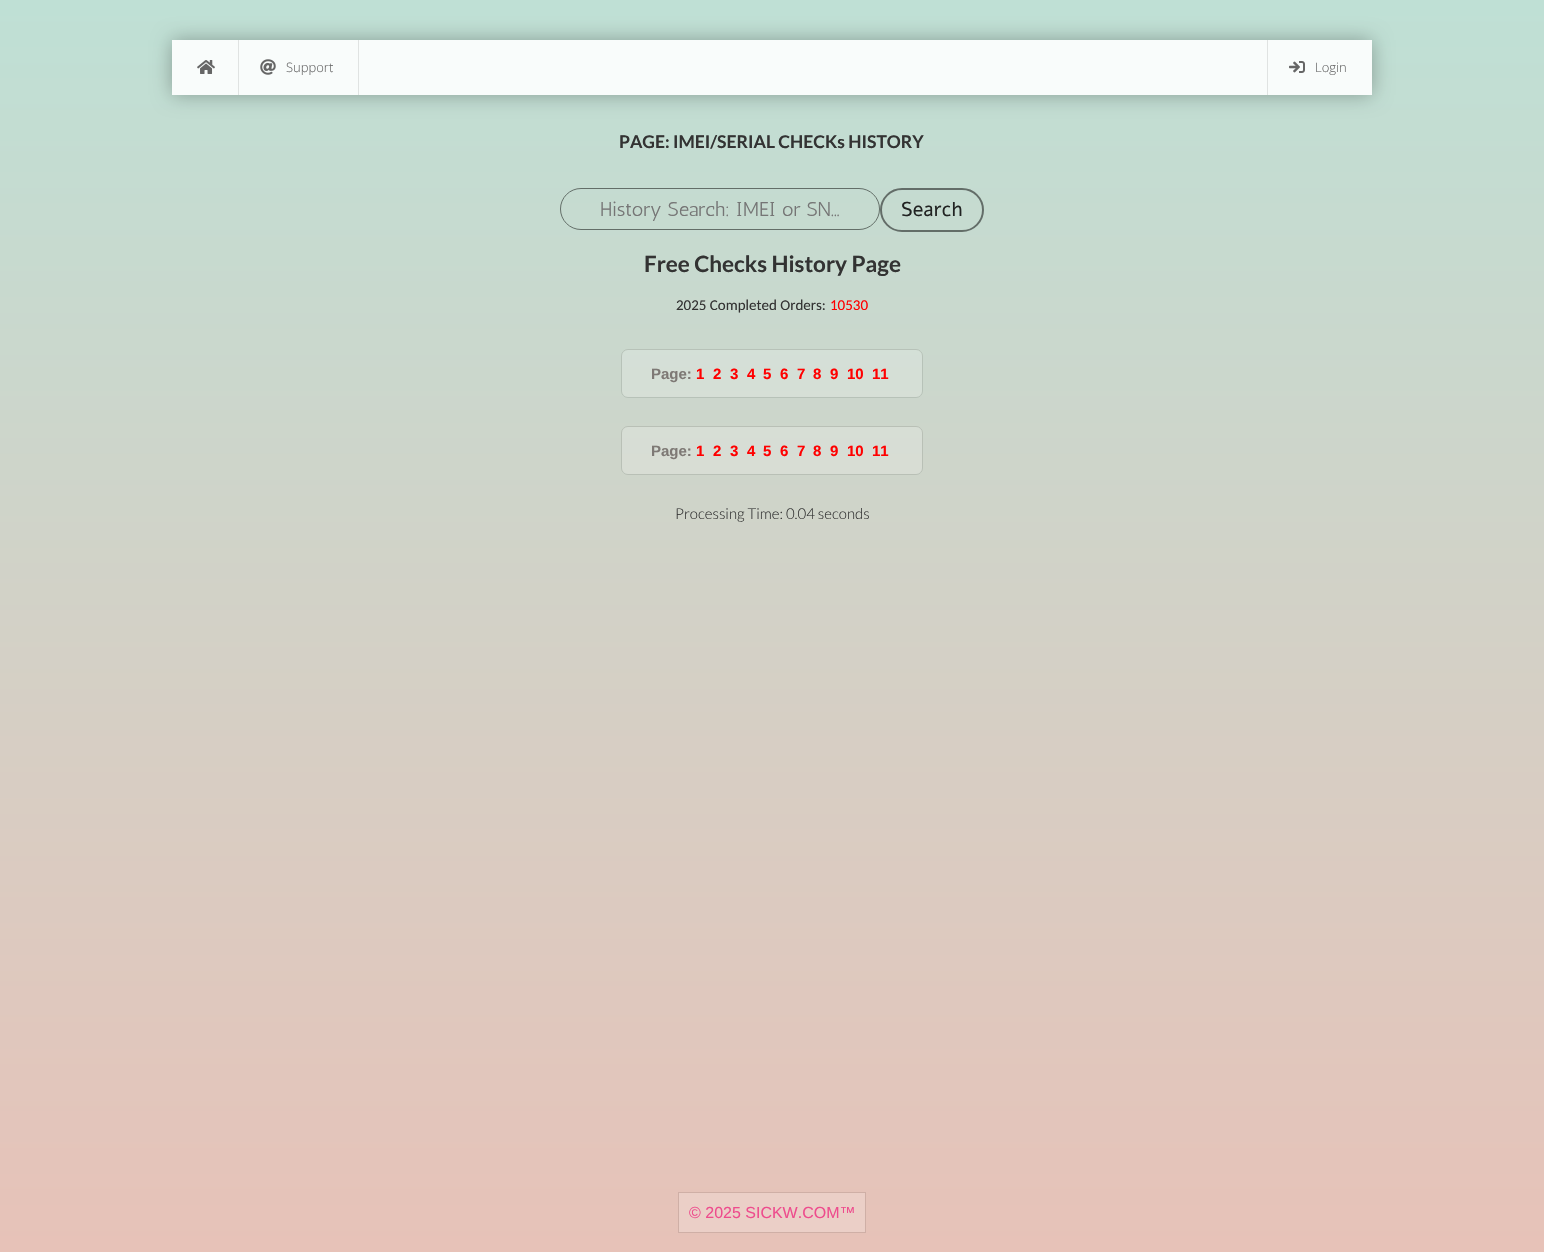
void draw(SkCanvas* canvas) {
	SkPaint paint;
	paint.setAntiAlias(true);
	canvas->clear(0xffffffff);
	{
		const SkColor colors[] = {0xffbfe0d5, 0xffe7c2b8};
		const float stops[] = {0, 1};
		const SkPoint ends[] = {{772, 0}, {772, 1252}};
		paint.setShader(SkGradientShader::MakeLinear(ends, colors, stops, 2, SkTileMode::kClamp));
		paint.setAlpha(255);
	}
	canvas->drawRect(SkRect::MakeXYWH(0, 0, 1544, 1252), paint);
	paint.setShader(nullptr);
	paint.setColor(0x4d000000);
	paint.setMaskFilter(SkMaskFilter::MakeBlur(kNormal_SkBlurStyle, 10));
	canvas->drawRect(SkRect::MakeXYWH(172, 40, 1200, 55), paint);
	paint.setMaskFilter(nullptr);
	paint.setColor(0xfff9fcfb);
	canvas->drawRect(SkRect::MakeXYWH(172, 40, 1200, 55), paint);
	paint.setColor(0xffe0e3e2);
	canvas->drawRect(SkRect::MakeXYWH(238, 40, 1, 55), paint);
	canvas->drawImageRect(SkImages::DeferredFromEncodedData(SkData::MakeFromFileName("img1.png")), SkRect::MakeXYWH(197, 60, 18, 14), SkSamplingOptions());
	canvas->drawRect(SkRect::MakeXYWH(358, 40, 1, 55), paint);
	canvas->drawImageRect(SkImages::DeferredFromEncodedData(SkData::MakeFromFileName("img2.png")), SkRect::MakeXYWH(260, 59, 16, 16), SkSamplingOptions());
	SkFont f1(fontMgr->matchFamilyStyle("Open Sans", SkFontStyle(300, SkFontStyle::kNormal_Width, SkFontStyle::kUpright_Slant)), 13);
	f1.setSubpixel(true);
	paint.setColor(0xff666666);
	canvas->drawString("Support", 286, 72, f1, paint);
	paint.setColor(0xffe0e3e2);
	canvas->drawRect(SkRect::MakeXYWH(1267, 40, 1, 55), paint);
	canvas->drawImageRect(SkImages::DeferredFromEncodedData(SkData::MakeFromFileName("img3.png")), SkRect::MakeXYWH(1289, 61, 16, 12), SkSamplingOptions());
	paint.setColor(0xff666666);
	canvas->drawString("Login", 1315, 72, f1, paint);
	SkFont f2(fontMgr->matchFamilyStyle("Lato", SkFontStyle::Bold()), 17.5);
	f2.setSubpixel(true);
	paint.setColor(0xff333333);
	canvas->drawString("PAGE: IMEI/SERIAL CHECKs HISTORY", 619, 148, f2, paint);
	paint.setStroke(true);
	paint.setStrokeWidth(1);
	paint.setColor(0xff636e68);
	canvas->drawRoundRect(SkRect::MakeXYWH(560.5, 188.5, 319, 41), 20.5, 20.5, paint);
	SkFont f3(fontMgr->matchFamilyStyle("Antic", SkFontStyle::Normal()), 20);
	f3.setSubpixel(true);
	paint.setStroke(false);
	paint.setColor(0xff757575);
	canvas->drawString("History Search: IMEI or SN...", 600, 216, f3, paint);
	paint.setStroke(true);
	paint.setStrokeWidth(2);
	paint.setColor(0xff636d68);
	canvas->drawRoundRect(SkRect::MakeXYWH(881, 189, 102, 42), 21, 21, paint);
	SkFont f4(fontMgr->matchFamilyStyle("Alef", SkFontStyle::Normal()), 20);
	f4.setSubpixel(true);
	paint.setStroke(false);
	paint.setColor(0xff212322);
	canvas->drawString("Search", 901, 216, f4, paint);
	SkFont f5(fontMgr->matchFamilyStyle("Lato", SkFontStyle::Bold()), 22.5);
	f5.setSubpixel(true);
	paint.setColor(0xff333333);
	canvas->drawString("Free Checks History Page", 644, 272, f5, paint);
	SkFont f6(fontMgr->matchFamilyStyle("Carlito", SkFontStyle::Normal()), 15);
	f6.setSubpixel(true);
	canvas->drawString("2025 Completed Orders:", 676, 310, f6, paint);
	paint.setColor(0xffff0000);
	canvas->drawString("10530", 830, 310, f6, paint);
	paint.setStroke(true);
	paint.setStrokeWidth(1);
	paint.setColor(0xffb7c2b8);
	canvas->drawRoundRect(SkRect::MakeXYWH(621.5, 349.5, 301, 48), 6.5, 6.5, paint);
	paint.setStroke(false);
	paint.setColor(0x33ffffff);
	canvas->drawRoundRect(SkRect::MakeXYWH(622, 350, 300, 47), 6, 6, paint);
	SkFont f7(fontMgr->matchFamilyStyle("Liberation Sans", SkFontStyle::Bold()), 15);
	f7.setSubpixel(true);
	paint.setColor(0xff7e7975);
	canvas->drawString("Page:", 651, 379, f7, paint);
	paint.setColor(0xffff0000);
	canvas->drawString("1", 696, 379, f7, paint);
	canvas->drawString("2", 713, 379, f7, paint);
	canvas->drawString("3", 730, 379, f7, paint);
	canvas->drawString("4", 747, 379, f7, paint);
	canvas->drawString("5", 763, 379, f7, paint);
	canvas->drawString("6", 780, 379, f7, paint);
	canvas->drawString("7", 797, 379, f7, paint);
	canvas->drawString("8", 813, 379, f7, paint);
	canvas->drawString("9", 830, 379, f7, paint);
	canvas->drawString("10", 847, 379, f7, paint);
	canvas->drawString("11", 872, 379, f7, paint);
	paint.setStroke(true);
	paint.setColor(0xffb9c0b6);
	canvas->drawRoundRect(SkRect::MakeXYWH(621.5, 426.5, 301, 48), 6.5, 6.5, paint);
	paint.setStroke(false);
	paint.setColor(0x33ffffff);
	canvas->drawRoundRect(SkRect::MakeXYWH(622, 427, 300, 47), 6, 6, paint);
	paint.setColor(0xff7e7975);
	canvas->drawString("Page:", 651, 456, f7, paint);
	paint.setColor(0xffff0000);
	canvas->drawString("1", 696, 456, f7, paint);
	canvas->drawString("2", 713, 456, f7, paint);
	canvas->drawString("3", 730, 456, f7, paint);
	canvas->drawString("4", 747, 456, f7, paint);
	canvas->drawString("5", 763, 456, f7, paint);
	canvas->drawString("6", 780, 456, f7, paint);
	canvas->drawString("7", 797, 456, f7, paint);
	canvas->drawString("8", 813, 456, f7, paint);
	canvas->drawString("9", 830, 456, f7, paint);
	canvas->drawString("10", 847, 456, f7, paint);
	canvas->drawString("11", 872, 456, f7, paint);
	SkFont f8(fontMgr->matchFamilyStyle("Lato", SkFontStyle(300, SkFontStyle::kNormal_Width, SkFontStyle::kUpright_Slant)), 15);
	f8.setSubpixel(true);
	paint.setColor(0xff333333);
	canvas->drawString("Processing Time: 0.04 seconds", 675, 519, f8, paint);
	paint.setStroke(true);
	paint.setColor(0xffcfafa6);
	canvas->drawRect(SkRect::MakeXYWH(678.5, 1192.5, 187, 40), paint);
	paint.setStroke(false);
	paint.setColor(0xffebcfc7);
	canvas->drawRect(SkRect::MakeXYWH(679, 1193, 186, 39), paint);
	SkFont f9(fontMgr->matchFamilyStyle("Liberation Sans", SkFontStyle::Normal()), 16);
	f9.setSubpixel(true);
	paint.setColor(0xffee4c8d);
	canvas->drawString("© 2025 SICKW.COM™", 689, 1218, f9, paint);
}
